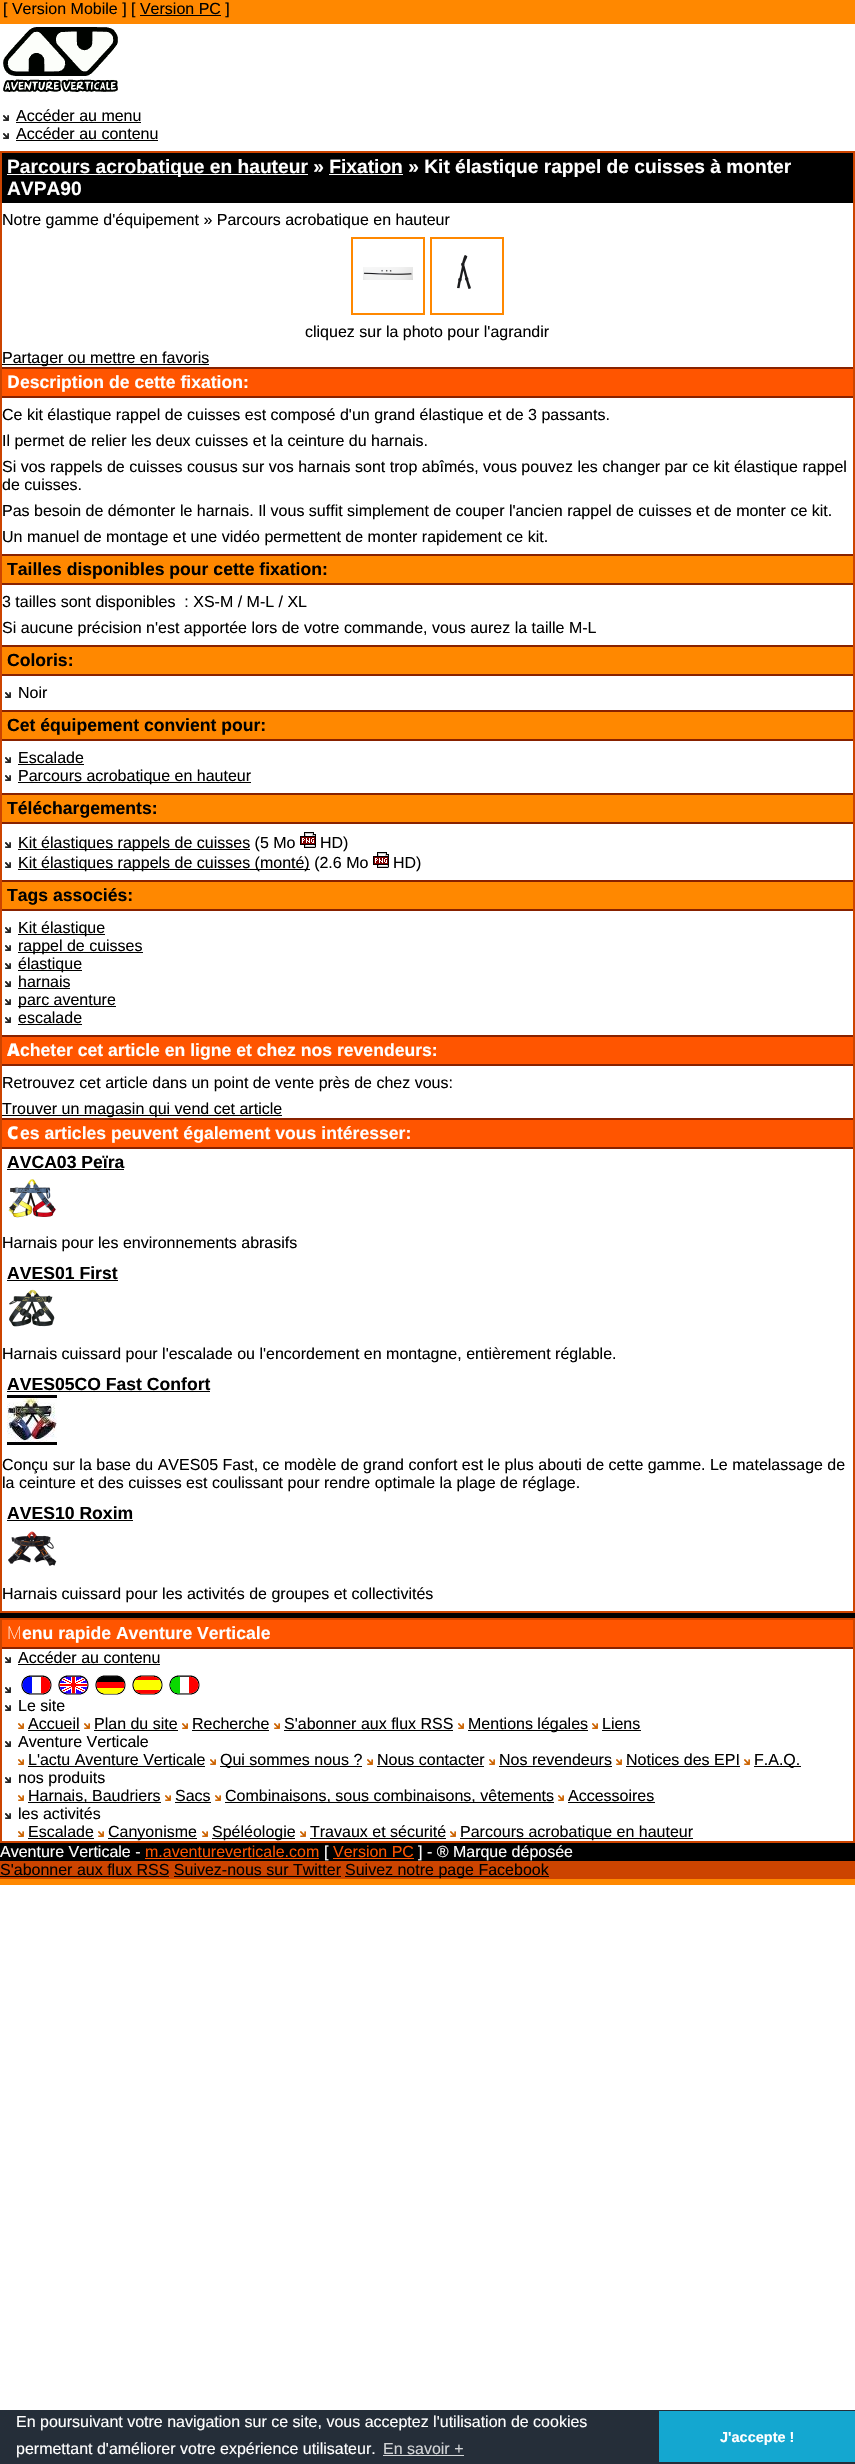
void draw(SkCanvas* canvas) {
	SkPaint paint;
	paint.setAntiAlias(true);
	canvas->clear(0xffffffff);
	paint.setColor(0xffff8800);
	canvas->drawRect(SkRect::MakeXYWH(0, 0, 855, 24), paint);
	SkFont f1(fontMgr->matchFamilyStyle("Liberation Sans", SkFontStyle::Normal()), 16);
	f1.setSubpixel(true);
	paint.setColor(0xff000000);
	canvas->drawString("[ Version Mobile ] [ Version PC ]", 3, 14, f1, paint);
	canvas->drawRect(SkRect::MakeXYWH(140, 15, 81, 1), paint);
	paint.setColor(0xffff8800);
	canvas->drawRect(SkRect::MakeXYWH(0, 1879, 855, 6), paint);
	canvas->drawImageRect(SkImages::DeferredFromEncodedData(SkData::MakeFromFileName("img1.png")), SkRect::MakeXYWH(3, 27, 115, 65), SkSamplingOptions());
	canvas->drawImageRect(SkImages::DeferredFromEncodedData(SkData::MakeFromFileName("img2.png")), SkRect::MakeXYWH(3, 115, 6, 6), SkSamplingOptions());
	paint.setColor(0xff000000);
	canvas->drawString("Accéder au menu", 16, 121, f1, paint);
	canvas->drawRect(SkRect::MakeXYWH(16, 122, 125, 1), paint);
	canvas->drawImageRect(SkImages::DeferredFromEncodedData(SkData::MakeFromFileName("img2.png")), SkRect::MakeXYWH(3, 133, 6, 6), SkSamplingOptions());
	canvas->drawString("Accéder au contenu", 16, 139, f1, paint);
	canvas->drawRect(SkRect::MakeXYWH(16, 140, 142, 1), paint);
	canvas->drawRect(SkRect::MakeXYWH(0, 1613, 855, 5), paint);
	paint.setStroke(true);
	paint.setStrokeWidth(2);
	paint.setColor(0xffcc4400);
	canvas->drawRect(SkRect::MakeXYWH(1, 152, 853, 1460), paint);
	paint.setStroke(false);
	paint.setColor(0xff000000);
	canvas->drawRect(SkRect::MakeXYWH(2, 153, 851, 50), paint);
	paint.setColor(0xffffffff);
	canvas->drawRect(SkRect::MakeXYWH(7, 174, 301, 1), paint);
	SkFont f2(fontMgr->matchFamilyStyle("Liberation Sans", SkFontStyle::Bold()), 19.2);
	f2.setSubpixel(true);
	canvas->drawString("Parcours acrobatique en hauteur » Fixation » Kit élastique rappel de cuisses à monter", 7, 173, f2, paint);
	canvas->drawRect(SkRect::MakeXYWH(329, 174, 74, 1), paint);
	canvas->drawString("AVPA90", 7, 195, f2, paint);
	paint.setColor(0xff000000);
	canvas->drawString("Notre gamme d'équipement » Parcours acrobatique en hauteur", 2, 225, f1, paint);
	paint.setStroke(true);
	paint.setColor(0xffff8800);
	canvas->drawRect(SkRect::MakeXYWH(352, 238, 72, 76), paint);
	canvas->drawImageRect(SkImages::DeferredFromEncodedData(SkData::MakeFromFileName("img3.png")), SkRect::MakeXYWH(363, 267, 50, 13), SkSamplingOptions());
	canvas->drawRect(SkRect::MakeXYWH(431, 238, 72, 76), paint);
	canvas->drawImageRect(SkImages::DeferredFromEncodedData(SkData::MakeFromFileName("img4.png")), SkRect::MakeXYWH(457, 255, 14, 34), SkSamplingOptions());
	paint.setStroke(false);
	paint.setColor(0xff000000);
	canvas->drawString("cliquez sur la photo pour l'agrandir", 305, 337, f1, paint);
	canvas->drawRect(SkRect::MakeXYWH(2, 364, 207, 1), paint);
	canvas->drawString("Partager ou mettre en favoris", 2, 363, f1, paint);
	paint.setColor(0xffff5500);
	canvas->drawRect(SkRect::MakeXYWH(2, 369, 851, 27), paint);
	paint.setColor(0xff882200);
	canvas->drawRect(SkRect::MakeXYWH(2, 367, 851, 2), paint);
	canvas->drawRect(SkRect::MakeXYWH(2, 396, 851, 2), paint);
	SkFont f3(fontMgr->matchFamilyStyle("Noto Sans", SkFontStyle::Bold()), 17.6);
	f3.setSubpixel(true);
	paint.setColor(0xffffffff);
	canvas->drawString("D", 7, 388, f3, paint);
	SkFont f4(fontMgr->matchFamilyStyle("Liberation Sans", SkFontStyle::Bold()), 17.6);
	f4.setSubpixel(true);
	canvas->drawString("escription de cette fixation:", 20, 388, f4, paint);
	paint.setColor(0xff000000);
	canvas->drawString("Ce kit élastique rappel de cuisses est composé d'un grand élastique et de 3 passants.", 2, 420, f1, paint);
	canvas->drawString("Il permet de relier les deux cuisses et la ceinture du harnais.", 2, 446, f1, paint);
	canvas->drawString("Si vos rappels de cuisses cousus sur vos harnais sont trop abîmés, vous pouvez les changer par ce kit élastique rappel", 2, 472, f1, paint);
	canvas->drawString("de cuisses.", 2, 490, f1, paint);
	canvas->drawString("Pas besoin de démonter le harnais. Il vous suffit simplement de couper l'ancien rappel de cuisses et de monter ce kit.", 2, 516, f1, paint);
	canvas->drawString("Un manuel de montage et une vidéo permettent de monter rapidement ce kit.", 2, 542, f1, paint);
	paint.setColor(0xffff8800);
	canvas->drawRect(SkRect::MakeXYWH(2, 556, 851, 27), paint);
	paint.setColor(0xff882200);
	canvas->drawRect(SkRect::MakeXYWH(2, 554, 851, 2), paint);
	canvas->drawRect(SkRect::MakeXYWH(2, 583, 851, 2), paint);
	paint.setColor(0xff000000);
	canvas->drawString("Tailles disponibles pour cette fixation:", 7, 575, f4, paint);
	canvas->drawString("3 tailles sont disponibles  : XS-M / M-L / XL", 2, 607, f1, paint);
	canvas->drawString("Si aucune précision n'est apportée lors de votre commande, vous aurez la taille M-L", 2, 633, f1, paint);
	paint.setColor(0xffff8800);
	canvas->drawRect(SkRect::MakeXYWH(2, 647, 851, 27), paint);
	paint.setColor(0xff882200);
	canvas->drawRect(SkRect::MakeXYWH(2, 645, 851, 2), paint);
	canvas->drawRect(SkRect::MakeXYWH(2, 674, 851, 2), paint);
	paint.setColor(0xff000000);
	canvas->drawString("Coloris:", 7, 666, f4, paint);
	canvas->drawImageRect(SkImages::DeferredFromEncodedData(SkData::MakeFromFileName("img2.png")), SkRect::MakeXYWH(5, 692, 6, 6), SkSamplingOptions());
	canvas->drawString("Noir", 18, 698, f1, paint);
	paint.setColor(0xffff8800);
	canvas->drawRect(SkRect::MakeXYWH(2, 712, 851, 27), paint);
	paint.setColor(0xff882200);
	canvas->drawRect(SkRect::MakeXYWH(2, 710, 851, 2), paint);
	canvas->drawRect(SkRect::MakeXYWH(2, 739, 851, 2), paint);
	paint.setColor(0xff000000);
	canvas->drawString("Cet équipement convient pour:", 7, 731, f4, paint);
	canvas->drawImageRect(SkImages::DeferredFromEncodedData(SkData::MakeFromFileName("img2.png")), SkRect::MakeXYWH(5, 757, 6, 6), SkSamplingOptions());
	canvas->drawString("Escalade", 18, 763, f1, paint);
	canvas->drawRect(SkRect::MakeXYWH(18, 764, 66, 1), paint);
	canvas->drawImageRect(SkImages::DeferredFromEncodedData(SkData::MakeFromFileName("img2.png")), SkRect::MakeXYWH(5, 775, 6, 6), SkSamplingOptions());
	canvas->drawRect(SkRect::MakeXYWH(18, 782, 233, 1), paint);
	canvas->drawString("Parcours acrobatique en hauteur", 18, 781, f1, paint);
	paint.setColor(0xffff8800);
	canvas->drawRect(SkRect::MakeXYWH(2, 795, 851, 27), paint);
	paint.setColor(0xff882200);
	canvas->drawRect(SkRect::MakeXYWH(2, 793, 851, 2), paint);
	canvas->drawRect(SkRect::MakeXYWH(2, 822, 851, 2), paint);
	paint.setColor(0xff000000);
	canvas->drawString("Téléchargements:", 7, 814, f4, paint);
	canvas->drawImageRect(SkImages::DeferredFromEncodedData(SkData::MakeFromFileName("img2.png")), SkRect::MakeXYWH(5, 842, 6, 6), SkSamplingOptions());
	canvas->drawRect(SkRect::MakeXYWH(18, 849, 232, 1), paint);
	canvas->drawString("Kit élastiques rappels de cuisses (5 Mo", 18, 848, f1, paint);
	canvas->drawImageRect(SkImages::DeferredFromEncodedData(SkData::MakeFromFileName("img5.png")), SkRect::MakeXYWH(300, 832, 16, 16), SkSamplingOptions());
	canvas->drawString("HD)", 320, 848, f1, paint);
	canvas->drawImageRect(SkImages::DeferredFromEncodedData(SkData::MakeFromFileName("img2.png")), SkRect::MakeXYWH(5, 862, 6, 6), SkSamplingOptions());
	canvas->drawRect(SkRect::MakeXYWH(18, 869, 292, 1), paint);
	canvas->drawString("Kit élastiques rappels de cuisses (monté) (2.6 Mo", 18, 868, f1, paint);
	canvas->drawImageRect(SkImages::DeferredFromEncodedData(SkData::MakeFromFileName("img5.png")), SkRect::MakeXYWH(373, 852, 16, 16), SkSamplingOptions());
	canvas->drawString("HD)", 393, 868, f1, paint);
	paint.setColor(0xffff8800);
	canvas->drawRect(SkRect::MakeXYWH(2, 882, 851, 27), paint);
	paint.setColor(0xff882200);
	canvas->drawRect(SkRect::MakeXYWH(2, 880, 851, 2), paint);
	canvas->drawRect(SkRect::MakeXYWH(2, 909, 851, 2), paint);
	paint.setColor(0xff000000);
	canvas->drawString("Tags associés:", 7, 901, f4, paint);
	canvas->drawImageRect(SkImages::DeferredFromEncodedData(SkData::MakeFromFileName("img2.png")), SkRect::MakeXYWH(5, 927, 6, 6), SkSamplingOptions());
	canvas->drawRect(SkRect::MakeXYWH(18, 934, 87, 1), paint);
	canvas->drawString("Kit élastique", 18, 933, f1, paint);
	canvas->drawImageRect(SkImages::DeferredFromEncodedData(SkData::MakeFromFileName("img2.png")), SkRect::MakeXYWH(5, 945, 6, 6), SkSamplingOptions());
	canvas->drawRect(SkRect::MakeXYWH(18, 952, 125, 1), paint);
	canvas->drawString("rappel de cuisses", 18, 951, f1, paint);
	canvas->drawImageRect(SkImages::DeferredFromEncodedData(SkData::MakeFromFileName("img2.png")), SkRect::MakeXYWH(5, 963, 6, 6), SkSamplingOptions());
	canvas->drawRect(SkRect::MakeXYWH(18, 970, 64, 1), paint);
	canvas->drawString("élastique", 18, 969, f1, paint);
	canvas->drawImageRect(SkImages::DeferredFromEncodedData(SkData::MakeFromFileName("img2.png")), SkRect::MakeXYWH(5, 981, 6, 6), SkSamplingOptions());
	canvas->drawString("harnais", 18, 987, f1, paint);
	canvas->drawRect(SkRect::MakeXYWH(18, 988, 52, 1), paint);
	canvas->drawImageRect(SkImages::DeferredFromEncodedData(SkData::MakeFromFileName("img2.png")), SkRect::MakeXYWH(5, 999, 6, 6), SkSamplingOptions());
	canvas->drawRect(SkRect::MakeXYWH(18, 1006, 98, 1), paint);
	canvas->drawString("parc aventure", 18, 1005, f1, paint);
	canvas->drawImageRect(SkImages::DeferredFromEncodedData(SkData::MakeFromFileName("img2.png")), SkRect::MakeXYWH(5, 1017, 6, 6), SkSamplingOptions());
	canvas->drawString("escalade", 18, 1023, f1, paint);
	canvas->drawRect(SkRect::MakeXYWH(18, 1024, 64, 1), paint);
	paint.setColor(0xffff5500);
	canvas->drawRect(SkRect::MakeXYWH(2, 1037, 851, 27), paint);
	paint.setColor(0xff882200);
	canvas->drawRect(SkRect::MakeXYWH(2, 1035, 851, 2), paint);
	canvas->drawRect(SkRect::MakeXYWH(2, 1064, 851, 2), paint);
	SkFont f5(fontMgr->matchFamilyStyle("Noto Sans", SkFontStyle(900, SkFontStyle::kNormal_Width, SkFontStyle::kUpright_Slant)), 17.6);
	f5.setSubpixel(true);
	paint.setColor(0xffffffff);
	canvas->drawString("A", 7, 1056, f5, paint);
	canvas->drawString("cheter cet article en ligne et chez nos revendeurs:", 20, 1056, f4, paint);
	paint.setColor(0xff000000);
	canvas->drawString("Retrouvez cet article dans un point de vente près de chez vous:", 2, 1088, f1, paint);
	canvas->drawRect(SkRect::MakeXYWH(2, 1115, 280, 1), paint);
	canvas->drawString("Trouver un magasin qui vend cet article", 2, 1114, f1, paint);
	paint.setColor(0xffff5500);
	canvas->drawRect(SkRect::MakeXYWH(2, 1120, 851, 27), paint);
	paint.setColor(0xff882200);
	canvas->drawRect(SkRect::MakeXYWH(2, 1118, 851, 2), paint);
	canvas->drawRect(SkRect::MakeXYWH(2, 1147, 851, 2), paint);
	paint.setColor(0xffffffff);
	canvas->drawString("C", 7, 1139, f5, paint);
	canvas->drawString("es articles peuvent également vous intéresser:", 20, 1139, f4, paint);
	paint.setColor(0xff000000);
	canvas->drawString("AVCA03 Peïra", 7, 1168, f4, paint);
	canvas->drawRect(SkRect::MakeXYWH(7, 1169, 117, 1), paint);
	canvas->drawImageRect(SkImages::DeferredFromEncodedData(SkData::MakeFromFileName("img6.png")), SkRect::MakeXYWH(8, 1179, 48, 39), SkSamplingOptions());
	canvas->drawString("Harnais pour les environnements abrasifs", 2, 1248, f1, paint);
	canvas->drawString("AVES01 First", 7, 1279, f4, paint);
	canvas->drawRect(SkRect::MakeXYWH(7, 1280, 111, 1), paint);
	canvas->drawImageRect(SkImages::DeferredFromEncodedData(SkData::MakeFromFileName("img7.png")), SkRect::MakeXYWH(9, 1289, 46, 38), SkSamplingOptions());
	canvas->drawString("Harnais cuissard pour l'escalade ou l'encordement en montagne, entièrement réglable.", 2, 1359, f1, paint);
	canvas->drawString("AVES05CO Fast Confort", 7, 1390, f4, paint);
	canvas->drawRect(SkRect::MakeXYWH(7, 1391, 203, 1), paint);
	canvas->drawImageRect(SkImages::DeferredFromEncodedData(SkData::MakeFromFileName("img8.png")), SkRect::MakeXYWH(7, 1395, 50, 50), SkSamplingOptions());
	canvas->drawString("Conçu sur la base du AVES05 Fast, ce modèle de grand confort est le plus abouti de cette gamme. Le matelassage de", 2, 1470, f1, paint);
	canvas->drawString("la ceinture et des cuisses est coulissant pour rendre optimale la plage de réglage.", 2, 1488, f1, paint);
	canvas->drawString("AVES10 Roxim", 7, 1519, f4, paint);
	canvas->drawRect(SkRect::MakeXYWH(7, 1520, 126, 1), paint);
	canvas->drawImageRect(SkImages::DeferredFromEncodedData(SkData::MakeFromFileName("img9.png")), SkRect::MakeXYWH(8, 1531, 49, 35), SkSamplingOptions());
	canvas->drawString("Harnais cuissard pour les activités de groupes et collectivités", 2, 1599, f1, paint);
	paint.setColor(0xffcc4400);
	canvas->drawRect(SkRect::MakeXYWH(0, 1618, 855, 2), paint);
	canvas->drawRect(SkRect::MakeXYWH(853, 1618, 2, 225), paint);
	canvas->drawRect(SkRect::MakeXYWH(0, 1618, 2, 79), paint);
	paint.setColor(0xffff5500);
	canvas->drawRect(SkRect::MakeXYWH(2, 1620, 851, 27), paint);
	paint.setColor(0xff882200);
	canvas->drawRect(SkRect::MakeXYWH(2, 1647, 851, 2), paint);
	SkFont f6(fontMgr->matchFamilyStyle("Noto Sans", SkFontStyle(100, SkFontStyle::kNormal_Width, SkFontStyle::kUpright_Slant)), 17.6);
	f6.setSubpixel(true);
	paint.setColor(0xffffffff);
	canvas->drawString("M", 7, 1639, f6, paint);
	canvas->drawString("enu rapide Aventure Verticale", 22, 1639, f4, paint);
	canvas->drawImageRect(SkImages::DeferredFromEncodedData(SkData::MakeFromFileName("img2.png")), SkRect::MakeXYWH(5, 1657, 6, 6), SkSamplingOptions());
	paint.setColor(0xff000000);
	canvas->drawString("Accéder au contenu", 18, 1663, f1, paint);
	canvas->drawRect(SkRect::MakeXYWH(18, 1664, 142, 1), paint);
	canvas->drawImageRect(SkImages::DeferredFromEncodedData(SkData::MakeFromFileName("img2.png")), SkRect::MakeXYWH(5, 1687, 6, 6), SkSamplingOptions());
	canvas->drawImageRect(SkImages::DeferredFromEncodedData(SkData::MakeFromFileName("img10.png")), SkRect::MakeXYWH(21, 1675, 31, 20), SkSamplingOptions());
	canvas->drawImageRect(SkImages::DeferredFromEncodedData(SkData::MakeFromFileName("img11.png")), SkRect::MakeXYWH(58, 1675, 31, 20), SkSamplingOptions());
	canvas->drawImageRect(SkImages::DeferredFromEncodedData(SkData::MakeFromFileName("img12.png")), SkRect::MakeXYWH(95, 1675, 31, 20), SkSamplingOptions());
	canvas->drawImageRect(SkImages::DeferredFromEncodedData(SkData::MakeFromFileName("img13.png")), SkRect::MakeXYWH(132, 1675, 31, 20), SkSamplingOptions());
	canvas->drawImageRect(SkImages::DeferredFromEncodedData(SkData::MakeFromFileName("img14.png")), SkRect::MakeXYWH(169, 1675, 31, 20), SkSamplingOptions());
	paint.setColor(0xffcc4400);
	canvas->drawRect(SkRect::MakeXYWH(0, 1841, 855, 2), paint);
	canvas->drawRect(SkRect::MakeXYWH(0, 1697, 2, 146), paint);
	canvas->drawImageRect(SkImages::DeferredFromEncodedData(SkData::MakeFromFileName("img2.png")), SkRect::MakeXYWH(5, 1705, 6, 6), SkSamplingOptions());
	paint.setColor(0xff000000);
	canvas->drawString("Le site", 18, 1711, f1, paint);
	canvas->drawImageRect(SkImages::DeferredFromEncodedData(SkData::MakeFromFileName("img15.png")), SkRect::MakeXYWH(18, 1723, 6, 6), SkSamplingOptions());
	canvas->drawString("Accueil", 28, 1729, f1, paint);
	canvas->drawRect(SkRect::MakeXYWH(28, 1730, 52, 1), paint);
	canvas->drawImageRect(SkImages::DeferredFromEncodedData(SkData::MakeFromFileName("img15.png")), SkRect::MakeXYWH(84, 1723, 6, 6), SkSamplingOptions());
	canvas->drawString("Plan du site", 94, 1729, f1, paint);
	canvas->drawRect(SkRect::MakeXYWH(94, 1730, 84, 1), paint);
	canvas->drawImageRect(SkImages::DeferredFromEncodedData(SkData::MakeFromFileName("img15.png")), SkRect::MakeXYWH(182, 1723, 6, 6), SkSamplingOptions());
	canvas->drawString("Recherche", 192, 1729, f1, paint);
	canvas->drawRect(SkRect::MakeXYWH(192, 1730, 77, 1), paint);
	canvas->drawImageRect(SkImages::DeferredFromEncodedData(SkData::MakeFromFileName("img15.png")), SkRect::MakeXYWH(274, 1723, 6, 6), SkSamplingOptions());
	canvas->drawString("S'abonner aux flux RSS", 284, 1729, f1, paint);
	canvas->drawRect(SkRect::MakeXYWH(284, 1730, 169, 1), paint);
	canvas->drawImageRect(SkImages::DeferredFromEncodedData(SkData::MakeFromFileName("img15.png")), SkRect::MakeXYWH(458, 1723, 6, 6), SkSamplingOptions());
	canvas->drawRect(SkRect::MakeXYWH(468, 1730, 120, 1), paint);
	canvas->drawString("Mentions légales", 468, 1729, f1, paint);
	canvas->drawImageRect(SkImages::DeferredFromEncodedData(SkData::MakeFromFileName("img15.png")), SkRect::MakeXYWH(592, 1723, 6, 6), SkSamplingOptions());
	canvas->drawString("Liens", 602, 1729, f1, paint);
	canvas->drawRect(SkRect::MakeXYWH(602, 1730, 39, 1), paint);
	canvas->drawImageRect(SkImages::DeferredFromEncodedData(SkData::MakeFromFileName("img2.png")), SkRect::MakeXYWH(5, 1741, 6, 6), SkSamplingOptions());
	canvas->drawString("Aventure Verticale", 18, 1747, f1, paint);
	canvas->drawImageRect(SkImages::DeferredFromEncodedData(SkData::MakeFromFileName("img15.png")), SkRect::MakeXYWH(18, 1759, 6, 6), SkSamplingOptions());
	canvas->drawString("L'actu Aventure Verticale", 28, 1765, f1, paint);
	canvas->drawRect(SkRect::MakeXYWH(28, 1766, 177, 1), paint);
	canvas->drawImageRect(SkImages::DeferredFromEncodedData(SkData::MakeFromFileName("img15.png")), SkRect::MakeXYWH(210, 1759, 6, 6), SkSamplingOptions());
	canvas->drawRect(SkRect::MakeXYWH(220, 1766, 142, 1), paint);
	canvas->drawString("Qui sommes nous ?", 220, 1765, f1, paint);
	canvas->drawImageRect(SkImages::DeferredFromEncodedData(SkData::MakeFromFileName("img15.png")), SkRect::MakeXYWH(367, 1759, 6, 6), SkSamplingOptions());
	canvas->drawString("Nous contacter", 377, 1765, f1, paint);
	canvas->drawRect(SkRect::MakeXYWH(377, 1766, 107, 1), paint);
	canvas->drawImageRect(SkImages::DeferredFromEncodedData(SkData::MakeFromFileName("img15.png")), SkRect::MakeXYWH(489, 1759, 6, 6), SkSamplingOptions());
	canvas->drawString("Nos revendeurs", 499, 1765, f1, paint);
	canvas->drawRect(SkRect::MakeXYWH(499, 1766, 113, 1), paint);
	canvas->drawImageRect(SkImages::DeferredFromEncodedData(SkData::MakeFromFileName("img15.png")), SkRect::MakeXYWH(616, 1759, 6, 6), SkSamplingOptions());
	canvas->drawString("Notices des EPI", 626, 1765, f1, paint);
	canvas->drawRect(SkRect::MakeXYWH(626, 1766, 114, 1), paint);
	canvas->drawImageRect(SkImages::DeferredFromEncodedData(SkData::MakeFromFileName("img15.png")), SkRect::MakeXYWH(744, 1759, 6, 6), SkSamplingOptions());
	canvas->drawRect(SkRect::MakeXYWH(754, 1766, 47, 1), paint);
	canvas->drawString("F.A.Q.", 754, 1765, f1, paint);
	canvas->drawImageRect(SkImages::DeferredFromEncodedData(SkData::MakeFromFileName("img2.png")), SkRect::MakeXYWH(5, 1777, 6, 6), SkSamplingOptions());
	canvas->drawString("nos produits", 18, 1783, f1, paint);
	canvas->drawImageRect(SkImages::DeferredFromEncodedData(SkData::MakeFromFileName("img15.png")), SkRect::MakeXYWH(18, 1795, 6, 6), SkSamplingOptions());
	canvas->drawRect(SkRect::MakeXYWH(28, 1802, 133, 1), paint);
	canvas->drawString("Harnais, Baudriers", 28, 1801, f1, paint);
	canvas->drawImageRect(SkImages::DeferredFromEncodedData(SkData::MakeFromFileName("img15.png")), SkRect::MakeXYWH(165, 1795, 6, 6), SkSamplingOptions());
	canvas->drawString("Sacs", 175, 1801, f1, paint);
	canvas->drawRect(SkRect::MakeXYWH(175, 1802, 36, 1), paint);
	canvas->drawImageRect(SkImages::DeferredFromEncodedData(SkData::MakeFromFileName("img15.png")), SkRect::MakeXYWH(215, 1795, 6, 6), SkSamplingOptions());
	canvas->drawRect(SkRect::MakeXYWH(225, 1802, 329, 1), paint);
	canvas->drawString("Combinaisons, sous combinaisons, vêtements", 225, 1801, f1, paint);
	canvas->drawImageRect(SkImages::DeferredFromEncodedData(SkData::MakeFromFileName("img15.png")), SkRect::MakeXYWH(558, 1795, 6, 6), SkSamplingOptions());
	canvas->drawString("Accessoires", 568, 1801, f1, paint);
	canvas->drawRect(SkRect::MakeXYWH(568, 1802, 87, 1), paint);
	canvas->drawImageRect(SkImages::DeferredFromEncodedData(SkData::MakeFromFileName("img2.png")), SkRect::MakeXYWH(5, 1813, 6, 6), SkSamplingOptions());
	canvas->drawString("les activités", 18, 1819, f1, paint);
	canvas->drawImageRect(SkImages::DeferredFromEncodedData(SkData::MakeFromFileName("img15.png")), SkRect::MakeXYWH(18, 1831, 6, 6), SkSamplingOptions());
	canvas->drawString("Escalade", 28, 1837, f1, paint);
	canvas->drawRect(SkRect::MakeXYWH(28, 1838, 66, 1), paint);
	canvas->drawImageRect(SkImages::DeferredFromEncodedData(SkData::MakeFromFileName("img15.png")), SkRect::MakeXYWH(98, 1831, 6, 6), SkSamplingOptions());
	canvas->drawRect(SkRect::MakeXYWH(108, 1838, 89, 1), paint);
	canvas->drawString("Canyonisme", 108, 1837, f1, paint);
	canvas->drawImageRect(SkImages::DeferredFromEncodedData(SkData::MakeFromFileName("img15.png")), SkRect::MakeXYWH(202, 1831, 6, 6), SkSamplingOptions());
	canvas->drawRect(SkRect::MakeXYWH(212, 1838, 83, 1), paint);
	canvas->drawString("Spéléologie", 212, 1837, f1, paint);
	canvas->drawImageRect(SkImages::DeferredFromEncodedData(SkData::MakeFromFileName("img15.png")), SkRect::MakeXYWH(300, 1831, 6, 6), SkSamplingOptions());
	canvas->drawString("Travaux et sécurité", 310, 1837, f1, paint);
	canvas->drawRect(SkRect::MakeXYWH(310, 1838, 136, 1), paint);
	canvas->drawImageRect(SkImages::DeferredFromEncodedData(SkData::MakeFromFileName("img15.png")), SkRect::MakeXYWH(450, 1831, 6, 6), SkSamplingOptions());
	canvas->drawRect(SkRect::MakeXYWH(460, 1838, 233, 1), paint);
	canvas->drawString("Parcours acrobatique en hauteur", 460, 1837, f1, paint);
	canvas->drawRect(SkRect::MakeXYWH(0, 1843, 855, 18), paint);
	paint.setColor(0xffffffff);
	canvas->drawString("Aventure Verticale -", 0, 1857, f1, paint);
	paint.setColor(0xffff5500);
	canvas->drawString("m.aventureverticale.com", 145, 1857, f1, paint);
	canvas->drawRect(SkRect::MakeXYWH(145, 1858, 174, 1), paint);
	paint.setColor(0xffffffff);
	canvas->drawString("[", 324, 1857, f1, paint);
	paint.setColor(0xffff5500);
	canvas->drawString("Version PC", 333, 1857, f1, paint);
	canvas->drawRect(SkRect::MakeXYWH(333, 1858, 81, 1), paint);
	paint.setColor(0xffffffff);
	canvas->drawString("] - ® Marque déposée", 418, 1857, f1, paint);
	paint.setColor(0xffcc4400);
	canvas->drawRect(SkRect::MakeXYWH(0, 1861, 855, 18), paint);
	paint.setColor(0xff000000);
	canvas->drawString("S'abonner aux flux RSS Suivez-nous sur Twitter", 0, 1875, f1, paint);
	canvas->drawRect(SkRect::MakeXYWH(0, 1876, 169, 1), paint);
	canvas->drawRect(SkRect::MakeXYWH(345, 1876, 204, 1), paint);
	canvas->drawString("Suivez notre page Facebook", 345, 1875, f1, paint);
	canvas->drawRect(SkRect::MakeXYWH(174, 1876, 167, 1), paint);
	paint.setColor(0xff252e39);
	canvas->drawRect(SkRect::MakeXYWH(0, 2410, 855, 54), paint);
	paint.setColor(0xffffffff);
	canvas->drawString("En poursuivant votre navigation sur ce site, vous acceptez l'utilisation de cookies", 16, 2427, f1, paint);
	canvas->drawString("permettant d'améliorer votre expérience utilisateur.", 16, 2454, f1, paint);
	paint.setColor(0xffd3d5d7);
	canvas->drawString("En savoir +", 383, 2454, f1, paint);
	canvas->drawRect(SkRect::MakeXYWH(383, 2455, 81, 1), paint);
	paint.setColor(0xff14a7d0);
	canvas->drawRect(SkRect::MakeXYWH(659, 2411, 196, 51), paint);
	SkFont f7(fontMgr->matchFamilyStyle("Liberation Sans", SkFontStyle::Bold()), 14.5);
	f7.setSubpixel(true);
	paint.setColor(0xffffffff);
	canvas->drawString("J'accepte !", 720, 2442, f7, paint);
}
